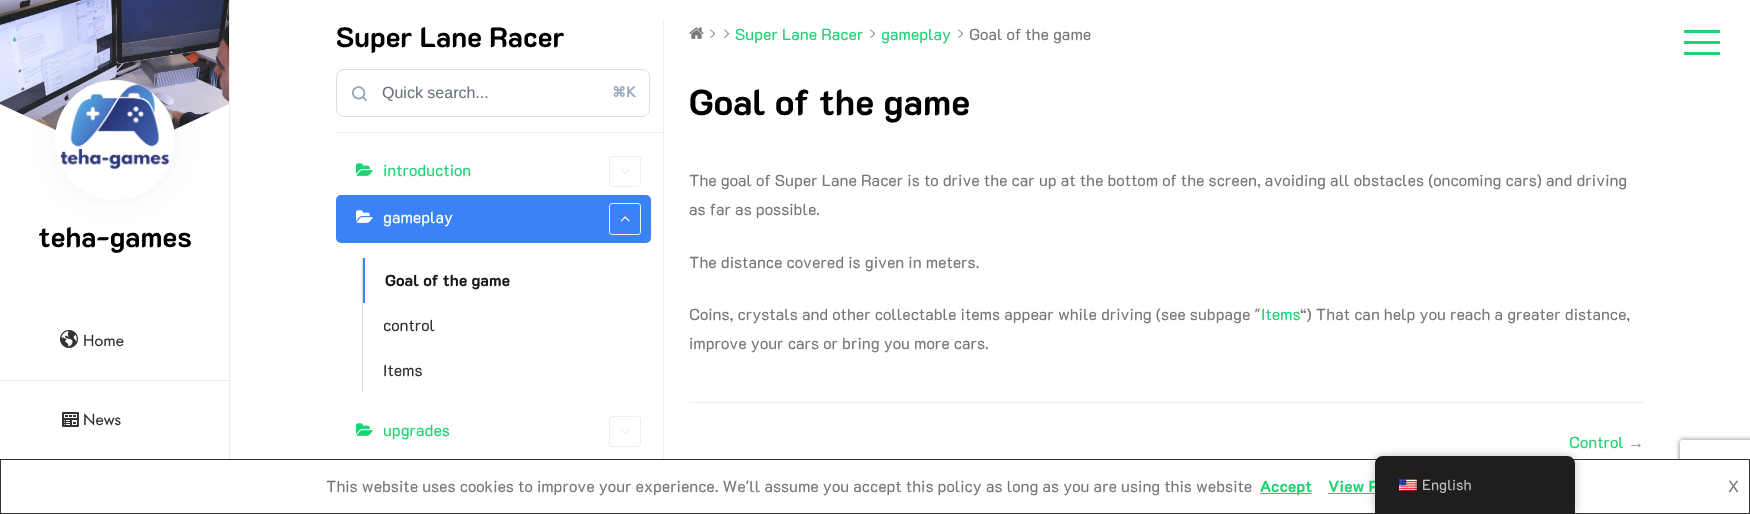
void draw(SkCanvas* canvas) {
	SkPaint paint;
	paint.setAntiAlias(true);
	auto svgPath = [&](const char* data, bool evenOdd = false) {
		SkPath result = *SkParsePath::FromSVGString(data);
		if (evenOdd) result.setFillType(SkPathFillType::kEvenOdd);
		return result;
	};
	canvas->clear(0xffffffff);
	SkFont f1(fontMgr->matchFamilyStyle("K2D", SkFontStyle::Bold()), 28);
	f1.setSubpixel(true);
	paint.setColor(0xff000000);
	canvas->drawString("Super Lane Racer", 336, 47, f1, paint);
	paint.setColor(0xffeeeeee);
	canvas->drawRect(SkRect::MakeXYWH(336, 132, 327, 1), paint);
	paint.setStroke(true);
	paint.setStrokeWidth(1);
	paint.setColor(0xffdbdbdb);
	canvas->drawRoundRect(SkRect::MakeXYWH(336.5, 69.5, 313, 47), 7.5, 7.5, paint);
	canvas->drawImageRect(SkImages::DeferredFromEncodedData(SkData::MakeFromFileName("img1.png")), SkRect::MakeXYWH(352, 86, 15, 16), SkSamplingOptions());
	SkFont f2(fontMgr->matchFamilyStyle("Liberation Sans", SkFontStyle::Normal()), 16);
	f2.setSubpixel(true);
	paint.setStroke(false);
	paint.setColor(0xff6b7280);
	canvas->drawString("Quick search...", 382, 98, f2, paint);
	SkFont f3(fontMgr->matchFamilyStyle("DejaVu Sans", SkFontStyle::Bold()), 14);
	f3.setSubpixel(true);
	paint.setColor(0xff9caabd);
	canvas->drawString("⌘K", 612, 97, f3, paint);
	canvas->drawImageRect(SkImages::DeferredFromEncodedData(SkData::MakeFromFileName("img2.png")), SkRect::MakeXYWH(356, 163, 17, 13), SkSamplingOptions());
	SkFont f4(fontMgr->matchFamilyStyle("K2D", SkFontStyle::Normal()), 16);
	f4.setSubpixel(true);
	paint.setColor(0xff1ed373);
	canvas->drawString("introduction", 383, 176, f4, paint);
	paint.setStroke(true);
	paint.setColor(0xffeeeeee);
	canvas->drawRoundRect(SkRect::MakeXYWH(609.5, 156.5, 31, 30), 2.5, 2.5, paint);
	canvas->drawImageRect(SkImages::DeferredFromEncodedData(SkData::MakeFromFileName("img3.png")), SkRect::MakeXYWH(621, 169, 9, 5), SkSamplingOptions());
	paint.setStroke(false);
	paint.setColor(0xff3b82f6);
	canvas->drawRoundRect(SkRect::MakeXYWH(336, 195, 315, 48), 5, 5, paint);
	canvas->drawImageRect(SkImages::DeferredFromEncodedData(SkData::MakeFromFileName("img4.png")), SkRect::MakeXYWH(356, 210, 17, 13), SkSamplingOptions());
	paint.setColor(0xffffffff);
	canvas->drawString("gameplay", 383, 223, f4, paint);
	paint.setStroke(true);
	paint.setColor(0xffeeeeee);
	canvas->drawRoundRect(SkRect::MakeXYWH(609.5, 203.5, 31, 31), 2.5, 2.5, paint);
	canvas->drawImageRect(SkImages::DeferredFromEncodedData(SkData::MakeFromFileName("img5.png")), SkRect::MakeXYWH(620, 216, 10, 6), SkSamplingOptions());
	paint.setStroke(false);
	paint.setColor(0xffdddddd);
	canvas->drawRect(SkRect::MakeXYWH(362, 258, 1, 135), paint);
	paint.setColor(0xff3b82f6);
	canvas->drawRect(SkRect::MakeXYWH(363, 258, 2, 45), paint);
	SkFont f5(fontMgr->matchFamilyStyle("K2D", SkFontStyle::Bold()), 16);
	f5.setSubpixel(true);
	paint.setColor(0xff191919);
	canvas->drawString("Goal of the game", 385, 286, f5, paint);
	paint.setColor(0xff333333);
	canvas->drawString("control", 383, 331, f4, paint);
	canvas->drawString("Items", 383, 376, f4, paint);
	canvas->drawImageRect(SkImages::DeferredFromEncodedData(SkData::MakeFromFileName("img2.png")), SkRect::MakeXYWH(356, 423, 17, 13), SkSamplingOptions());
	paint.setColor(0xff1ed373);
	canvas->drawString("upgrades", 383, 436, f4, paint);
	paint.setStroke(true);
	paint.setColor(0xffeeeeee);
	canvas->drawRoundRect(SkRect::MakeXYWH(609.5, 416.5, 31, 30), 2.5, 2.5, paint);
	canvas->drawImageRect(SkImages::DeferredFromEncodedData(SkData::MakeFromFileName("img3.png")), SkRect::MakeXYWH(621, 429, 9, 5), SkSamplingOptions());
	paint.setStroke(false);
	canvas->drawRect(SkRect::MakeXYWH(663, 20, 1, 439), paint);
	canvas->drawImageRect(SkImages::DeferredFromEncodedData(SkData::MakeFromFileName("img6.png")), SkRect::MakeXYWH(689, 27, 15, 12), SkSamplingOptions());
	canvas->drawImageRect(SkImages::DeferredFromEncodedData(SkData::MakeFromFileName("img7.png")), SkRect::MakeXYWH(710, 29, 6, 10), SkSamplingOptions());
	canvas->drawImageRect(SkImages::DeferredFromEncodedData(SkData::MakeFromFileName("img7.png")), SkRect::MakeXYWH(724, 29, 6, 10), SkSamplingOptions());
	paint.setColor(0xff1ed373);
	canvas->drawString("Super Lane Racer", 735, 40, f4, paint);
	canvas->drawImageRect(SkImages::DeferredFromEncodedData(SkData::MakeFromFileName("img7.png")), SkRect::MakeXYWH(870, 29, 6, 10), SkSamplingOptions());
	canvas->drawString("gameplay", 881, 40, f4, paint);
	canvas->drawImageRect(SkImages::DeferredFromEncodedData(SkData::MakeFromFileName("img7.png")), SkRect::MakeXYWH(958, 29, 6, 10), SkSamplingOptions());
	paint.setColor(0xff777777);
	canvas->drawString("Goal of the game", 969, 40, f4, paint);
	SkFont f6(fontMgr->matchFamilyStyle("K2D", SkFontStyle::Bold()), 36);
	f6.setSubpixel(true);
	paint.setColor(0xff000000);
	canvas->drawString("Goal of the game", 689, 115, f6, paint);
	paint.setColor(0xff777777);
	canvas->drawString("The goal of Super Lane Racer is to drive the car up at the bottom of the screen, avoiding all obstacles (oncoming cars) and driving", 689, 186, f4, paint);
	canvas->drawString("as far as possible.", 689, 215, f4, paint);
	canvas->drawString("The distance covered is given in meters.", 689, 268, f4, paint);
	canvas->drawString("Coins, crystals and other collectable items appear while driving (see subpage \"", 689, 320, f4, paint);
	paint.setColor(0xff1ed373);
	canvas->drawString("Items", 1261, 320, f4, paint);
	paint.setColor(0xff777777);
	canvas->drawString("“) That can help you reach a greater distance,", 1300, 320, f4, paint);
	canvas->drawString("improve your cars or bring you more cars.", 689, 349, f4, paint);
	paint.setColor(0xffeeeeee);
	canvas->drawRect(SkRect::MakeXYWH(689, 402, 955, 1), paint);
	paint.setColor(0xff1ed373);
	canvas->drawString("Control", 1569, 448, f4, paint);
	canvas->drawString("→", 1628, 448, f2, paint);
	canvas->drawRect(SkRect::MakeXYWH(1684, 30, 36, 3), paint);
	canvas->drawRect(SkRect::MakeXYWH(1684, 41, 36, 3), paint);
	canvas->drawRect(SkRect::MakeXYWH(1684, 52, 36, 3), paint);
	paint.setColor(0xffebebeb);
	canvas->drawRect(SkRect::MakeXYWH(229, 0, 1, 459), paint);
	canvas->drawImageRect(SkImages::DeferredFromEncodedData(SkData::MakeFromFileName("img8.png")), SkRect::MakeXYWH(0, 0, 229, 131), SkSamplingOptions());
	canvas->save();
	canvas->clipRect(SkRect::MakeXYWH(0, 0, 229, 160));
	paint.setColor(0xffffffff);
	canvas->drawPath(svgPath("M0 104L208 201L160 302L-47 206Z"), paint);
	canvas->drawPath(svgPath("M21 201L229 104L276 206L69 302Z"), paint);
	canvas->restore();
	paint.setColor(0x0d000000);
	paint.setMaskFilter(SkMaskFilter::MakeBlur(kNormal_SkBlurStyle, 10));
	canvas->drawRoundRect(SkRect::MakeXYWH(55, 80, 120, 120), 60, 60, paint);
	paint.setMaskFilter(nullptr);
	paint.setColor(0xffffffff);
	canvas->drawCircle(115, 140, 60, paint);
	canvas->drawImageRect(SkImages::DeferredFromEncodedData(SkData::MakeFromFileName("img9.png")), SkRect::MakeXYWH(60, 84, 110, 86), SkSamplingOptions());
	paint.setColor(0xff000000);
	canvas->drawString("teha-games", 38, 247, f1, paint);
	paint.setColor(0xffebebeb);
	canvas->drawRect(SkRect::MakeXYWH(0, 380, 229, 1), paint);
	canvas->drawImageRect(SkImages::DeferredFromEncodedData(SkData::MakeFromFileName("img10.png")), SkRect::MakeXYWH(60, 330, 18, 18), SkSamplingOptions());
	SkFont f7(fontMgr->matchFamilyStyle("Jost", SkFontStyle::Normal()), 16);
	f7.setSubpixel(true);
	paint.setColor(0xff333333);
	canvas->drawString("Home", 83, 346, f7, paint);
	canvas->drawImageRect(SkImages::DeferredFromEncodedData(SkData::MakeFromFileName("img11.png")), SkRect::MakeXYWH(62, 412, 17, 15), SkSamplingOptions());
	canvas->drawString("News", 83, 425, f7, paint);
	canvas->save();
	canvas->clipPath(svgPath("M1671 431H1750V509H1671ZM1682 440H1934C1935 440 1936 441 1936 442V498C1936 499 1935 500 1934 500H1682C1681 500 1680 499 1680 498V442C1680 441 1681 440 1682 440Z", true), true);
	paint.setColor(0xff808080);
	paint.setMaskFilter(SkMaskFilter::MakeBlur(kNormal_SkBlurStyle, 2.5));
	canvas->drawRoundRect(SkRect::MakeXYWH(1680, 440, 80, 60), 2, 2, paint);
	paint.setMaskFilter(nullptr);
	canvas->restore();
	paint.setColor(0xffffffff);
	canvas->drawRect(SkRect::MakeXYWH(1675, 460, 74, 45), paint);
	paint.setStroke(true);
	paint.setColor(0xff333333);
	canvas->drawRect(SkRect::MakeXYWH(0.5, 459.5, 1749, 54), paint);
	paint.setStroke(false);
	paint.setColor(0xff1ed373);
	canvas->drawRect(SkRect::MakeXYWH(1328, 493, 47, 1), paint);
	paint.setColor(0x40000000);
	paint.setMaskFilter(SkMaskFilter::MakeBlur(kNormal_SkBlurStyle, 4));
	canvas->drawRoundRect(SkRect::MakeXYWH(1375, 456, 200, 58), 8, 8, paint);
	paint.setMaskFilter(nullptr);
	paint.setColor(0xff1ed373);
	canvas->drawString("View P", 1328, 492, f5, paint);
	paint.setColor(0xff1e1e1e);
	canvas->drawPath(svgPath("M1383 456H1567C1571.5 456 1575 459.5 1575 464V514H1375V464C1375 459.5 1378.5 456 1383 456Z"), paint);
	canvas->drawImageRect(SkImages::DeferredFromEncodedData(SkData::MakeFromFileName("img12.png")), SkRect::MakeXYWH(1399, 479, 18, 12), SkSamplingOptions());
	SkFont f8(fontMgr->matchFamilyStyle("K2D", SkFontStyle::Normal()), 14.5);
	f8.setSubpixel(true);
	paint.setColor(0xffbdbdbd);
	canvas->drawString("English", 1422, 490, f8, paint);
	paint.setColor(0xff777777);
	canvas->drawString("This website uses cookies to improve your experience. We'll assume you accept this policy as long as you are using this website", 326, 492, f4, paint);
	paint.setColor(0xff1ed373);
	canvas->drawRect(SkRect::MakeXYWH(1260, 493, 52, 1), paint);
	canvas->drawString("Accept", 1260, 492, f5, paint);
	paint.setColor(0xff777777);
	canvas->drawString("X", 1728, 492, f4, paint);
}
